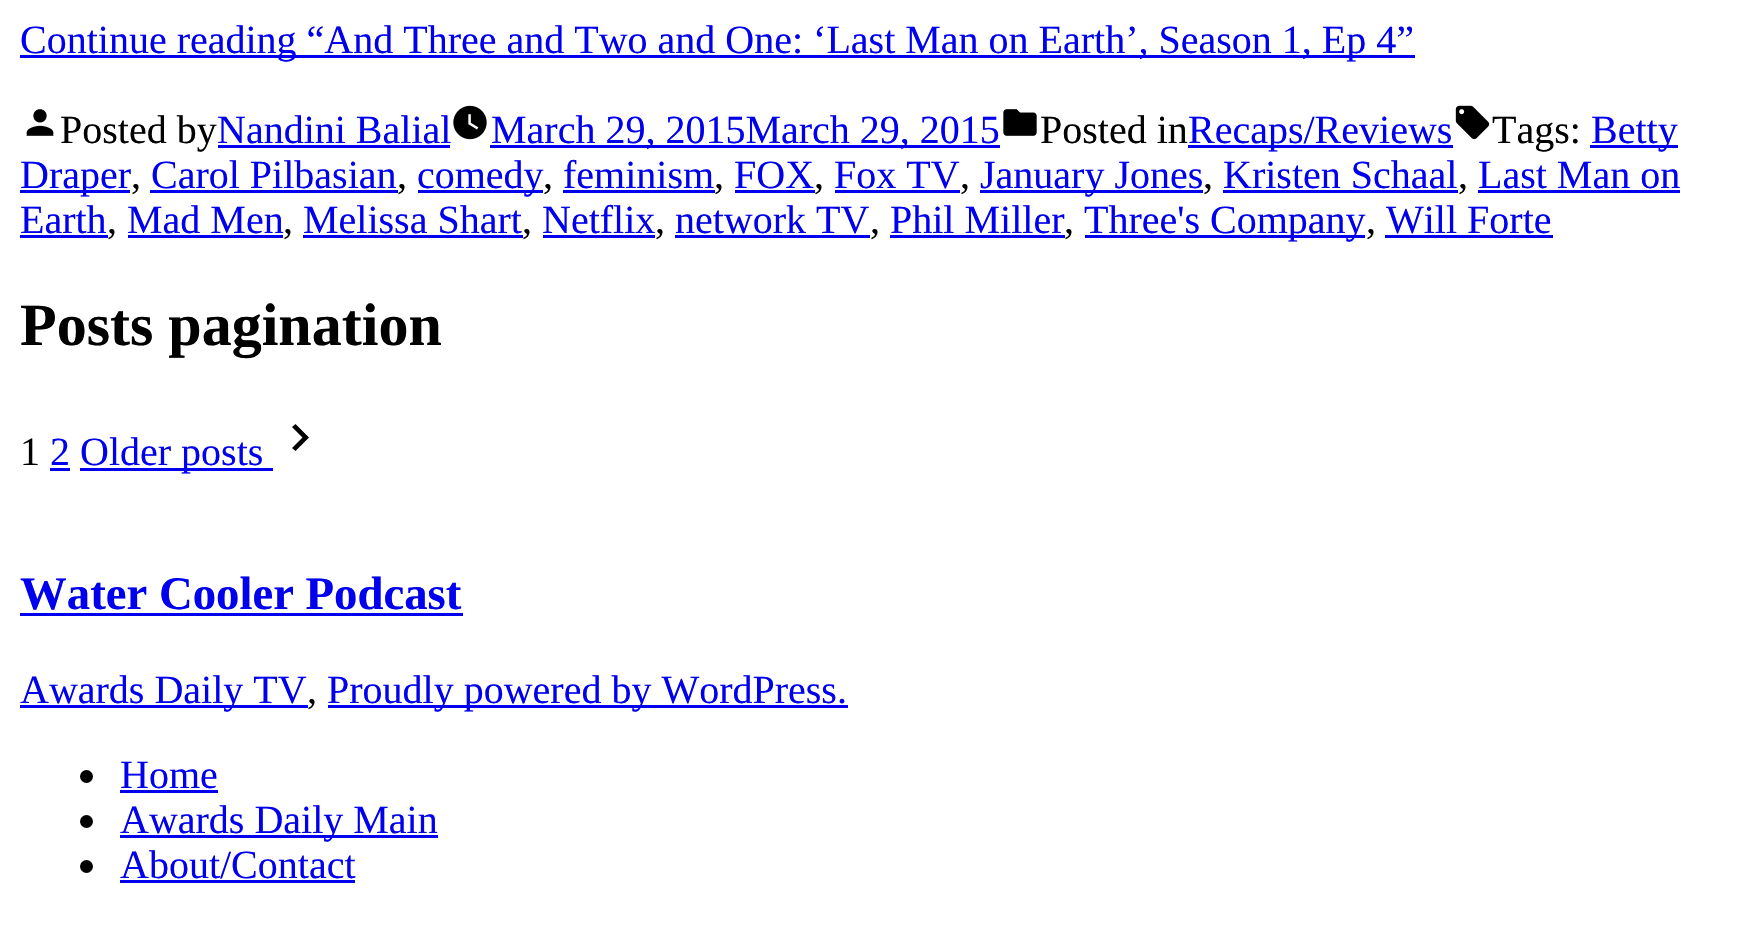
void draw(SkCanvas* canvas) {
	SkPaint paint;
	paint.setAntiAlias(true);
	auto svgPath = [&](const char* data, bool evenOdd = false) {
		SkPath result = *SkParsePath::FromSVGString(data);
		if (evenOdd) result.setFillType(SkPathFillType::kEvenOdd);
		return result;
	};
	canvas->clear(0xffffffff);
	paint.setColor(0xff0000ee);
	canvas->drawRect(SkRect::MakeXYWH(20, 55, 1395, 3), paint);
	SkFont f1(fontMgr->matchFamilyStyle("Liberation Serif", SkFontStyle::Normal()), 40);
	f1.setSubpixel(true);
	canvas->drawString("Continue reading “And Three and Two and One: ‘Last Man on Earth’, Season 1, Ep 4”", 20, 53, f1, paint);
	canvas->drawImageRect(SkImages::DeferredFromEncodedData(SkData::MakeFromFileName("img1.png")), SkRect::MakeXYWH(26, 109, 28, 27), SkSamplingOptions());
	paint.setColor(0xff000000);
	canvas->drawString("Posted by", 60, 143, f1, paint);
	paint.setColor(0xff0000ee);
	canvas->drawRect(SkRect::MakeXYWH(218, 145, 232, 3), paint);
	canvas->drawString("Nandini Balial", 217, 143, f1, paint);
	canvas->drawImageRect(SkImages::DeferredFromEncodedData(SkData::MakeFromFileName("img2.png")), SkRect::MakeXYWH(453, 105, 34, 35), SkSamplingOptions());
	canvas->drawRect(SkRect::MakeXYWH(490, 145, 510, 3), paint);
	canvas->drawString("March 29, 2015March 29, 2015", 491, 143, f1, paint);
	canvas->drawImageRect(SkImages::DeferredFromEncodedData(SkData::MakeFromFileName("img3.png")), SkRect::MakeXYWH(1003, 109, 34, 27), SkSamplingOptions());
	paint.setColor(0xff000000);
	canvas->drawString("Posted in", 1040, 143, f1, paint);
	paint.setColor(0xff0000ee);
	canvas->drawRect(SkRect::MakeXYWH(1188, 145, 265, 3), paint);
	canvas->drawString("Recaps/Reviews", 1188, 143, f1, paint);
	canvas->drawImageRect(SkImages::DeferredFromEncodedData(SkData::MakeFromFileName("img4.png")), SkRect::MakeXYWH(1455, 105, 35, 35), SkSamplingOptions());
	paint.setColor(0xff000000);
	canvas->drawString("Tags:", 1492, 143, f1, paint);
	paint.setColor(0xff0000ee);
	canvas->drawRect(SkRect::MakeXYWH(1590, 145, 88, 3), paint);
	canvas->drawString("Betty", 1591, 143, f1, paint);
	canvas->drawRect(SkRect::MakeXYWH(20, 190, 110, 3), paint);
	canvas->drawString("Draper", 20, 188, f1, paint);
	paint.setColor(0xff000000);
	canvas->drawString(",", 131, 188, f1, paint);
	paint.setColor(0xff0000ee);
	canvas->drawString("Carol Pilbasian", 151, 188, f1, paint);
	paint.setColor(0xff000000);
	canvas->drawString(",", 397, 188, f1, paint);
	paint.setColor(0xff0000ee);
	canvas->drawRect(SkRect::MakeXYWH(150, 190, 248, 3), paint);
	canvas->drawRect(SkRect::MakeXYWH(418, 190, 125, 3), paint);
	canvas->drawString("comedy", 417, 188, f1, paint);
	paint.setColor(0xff000000);
	canvas->drawString(",", 543, 188, f1, paint);
	paint.setColor(0xff0000ee);
	canvas->drawString("feminism", 563, 188, f1, paint);
	paint.setColor(0xff000000);
	canvas->drawString(",", 714, 188, f1, paint);
	paint.setColor(0xff0000ee);
	canvas->drawRect(SkRect::MakeXYWH(563, 190, 152, 3), paint);
	canvas->drawString("FOX", 734, 188, f1, paint);
	paint.setColor(0xff000000);
	canvas->drawString(",", 814, 188, f1, paint);
	paint.setColor(0xff0000ee);
	canvas->drawRect(SkRect::MakeXYWH(735, 190, 80, 3), paint);
	canvas->drawString("Fox TV", 834, 188, f1, paint);
	paint.setColor(0xff000000);
	canvas->drawString(",", 960, 188, f1, paint);
	paint.setColor(0xff0000ee);
	canvas->drawRect(SkRect::MakeXYWH(835, 190, 125, 3), paint);
	canvas->drawRect(SkRect::MakeXYWH(980, 190, 223, 3), paint);
	canvas->drawString("January Jones", 980, 188, f1, paint);
	paint.setColor(0xff000000);
	canvas->drawString(",", 1203, 188, f1, paint);
	paint.setColor(0xff0000ee);
	canvas->drawString("Kristen Schaal", 1223, 188, f1, paint);
	paint.setColor(0xff000000);
	canvas->drawString(",", 1458, 188, f1, paint);
	paint.setColor(0xff0000ee);
	canvas->drawRect(SkRect::MakeXYWH(1223, 190, 235, 3), paint);
	canvas->drawRect(SkRect::MakeXYWH(1478, 190, 202, 3), paint);
	canvas->drawString("Last Man on", 1478, 188, f1, paint);
	canvas->drawString("Earth", 20, 233, f1, paint);
	paint.setColor(0xff000000);
	canvas->drawString(",", 107, 233, f1, paint);
	paint.setColor(0xff0000ee);
	canvas->drawRect(SkRect::MakeXYWH(20, 235, 88, 3), paint);
	canvas->drawString("Mad Men", 127, 233, f1, paint);
	paint.setColor(0xff000000);
	canvas->drawString(",", 283, 233, f1, paint);
	paint.setColor(0xff0000ee);
	canvas->drawRect(SkRect::MakeXYWH(128, 235, 155, 3), paint);
	canvas->drawString("Melissa Shart", 303, 233, f1, paint);
	paint.setColor(0xff000000);
	canvas->drawString(",", 522, 233, f1, paint);
	paint.setColor(0xff0000ee);
	canvas->drawRect(SkRect::MakeXYWH(303, 235, 220, 3), paint);
	canvas->drawString("Netflix", 542, 233, f1, paint);
	paint.setColor(0xff000000);
	canvas->drawString(",", 655, 233, f1, paint);
	paint.setColor(0xff0000ee);
	canvas->drawRect(SkRect::MakeXYWH(543, 235, 112, 3), paint);
	canvas->drawString("network TV", 675, 233, f1, paint);
	paint.setColor(0xff000000);
	canvas->drawString(",", 870, 233, f1, paint);
	paint.setColor(0xff0000ee);
	canvas->drawRect(SkRect::MakeXYWH(675, 235, 195, 3), paint);
	canvas->drawString("Phil Miller", 890, 233, f1, paint);
	paint.setColor(0xff000000);
	canvas->drawString(",", 1064, 233, f1, paint);
	paint.setColor(0xff0000ee);
	canvas->drawRect(SkRect::MakeXYWH(890, 235, 175, 3), paint);
	canvas->drawRect(SkRect::MakeXYWH(1085, 235, 280, 3), paint);
	canvas->drawString("Three's Company", 1084, 233, f1, paint);
	paint.setColor(0xff000000);
	canvas->drawString(",", 1366, 233, f1, paint);
	paint.setColor(0xff0000ee);
	canvas->drawRect(SkRect::MakeXYWH(1385, 235, 168, 3), paint);
	canvas->drawString("Will Forte", 1386, 233, f1, paint);
	SkFont f2(fontMgr->matchFamilyStyle("Liberation Serif", SkFontStyle::Bold()), 60);
	f2.setSubpixel(true);
	paint.setColor(0xff000000);
	canvas->drawString("Posts pagination", 20, 345, f2, paint);
	canvas->drawString("1", 20, 465, f1, paint);
	paint.setColor(0xff0000ee);
	canvas->drawString("2", 50, 465, f1, paint);
	canvas->drawRect(SkRect::MakeXYWH(50, 468, 20, 3), paint);
	canvas->drawRect(SkRect::MakeXYWH(80, 468, 193, 3), paint);
	canvas->drawString("Older posts", 80, 465, f1, paint);
	paint.setColor(0xff000000);
	canvas->drawPath(svgPath("M295.5 424L292 427L302.5 437.5L292 448L295.5 451L309 437.5Z"), paint);
	SkFont f3(fontMgr->matchFamilyStyle("Liberation Serif", SkFontStyle::Bold()), 46.75);
	f3.setSubpixel(true);
	paint.setColor(0xff0000ee);
	canvas->drawString("Water Cooler Podcast", 20, 609, f3, paint);
	canvas->drawRect(SkRect::MakeXYWH(20, 613, 443, 3), paint);
	canvas->drawRect(SkRect::MakeXYWH(20, 705, 288, 3), paint);
	canvas->drawString("Awards Daily TV", 20, 703, f1, paint);
	paint.setColor(0xff000000);
	canvas->drawString(",", 307, 703, f1, paint);
	paint.setColor(0xff0000ee);
	canvas->drawRect(SkRect::MakeXYWH(328, 705, 520, 3), paint);
	canvas->drawString("Proudly powered by WordPress.", 327, 703, f1, paint);
	paint.setColor(0xff000000);
	canvas->drawCircle(86.5, 776.5, 6.5, paint);
	paint.setColor(0xff0000ee);
	canvas->drawString("Home", 120, 788, f1, paint);
	canvas->drawRect(SkRect::MakeXYWH(120, 790, 98, 3), paint);
	paint.setColor(0xff000000);
	canvas->drawCircle(86.5, 821.5, 6.5, paint);
	paint.setColor(0xff0000ee);
	canvas->drawRect(SkRect::MakeXYWH(120, 835, 318, 3), paint);
	canvas->drawString("Awards Daily Main", 120, 833, f1, paint);
	paint.setColor(0xff000000);
	canvas->drawCircle(86.5, 866.5, 6.5, paint);
	paint.setColor(0xff0000ee);
	canvas->drawString("About/Contact", 120, 878, f1, paint);
	canvas->drawRect(SkRect::MakeXYWH(120, 880, 235, 3), paint);
}
